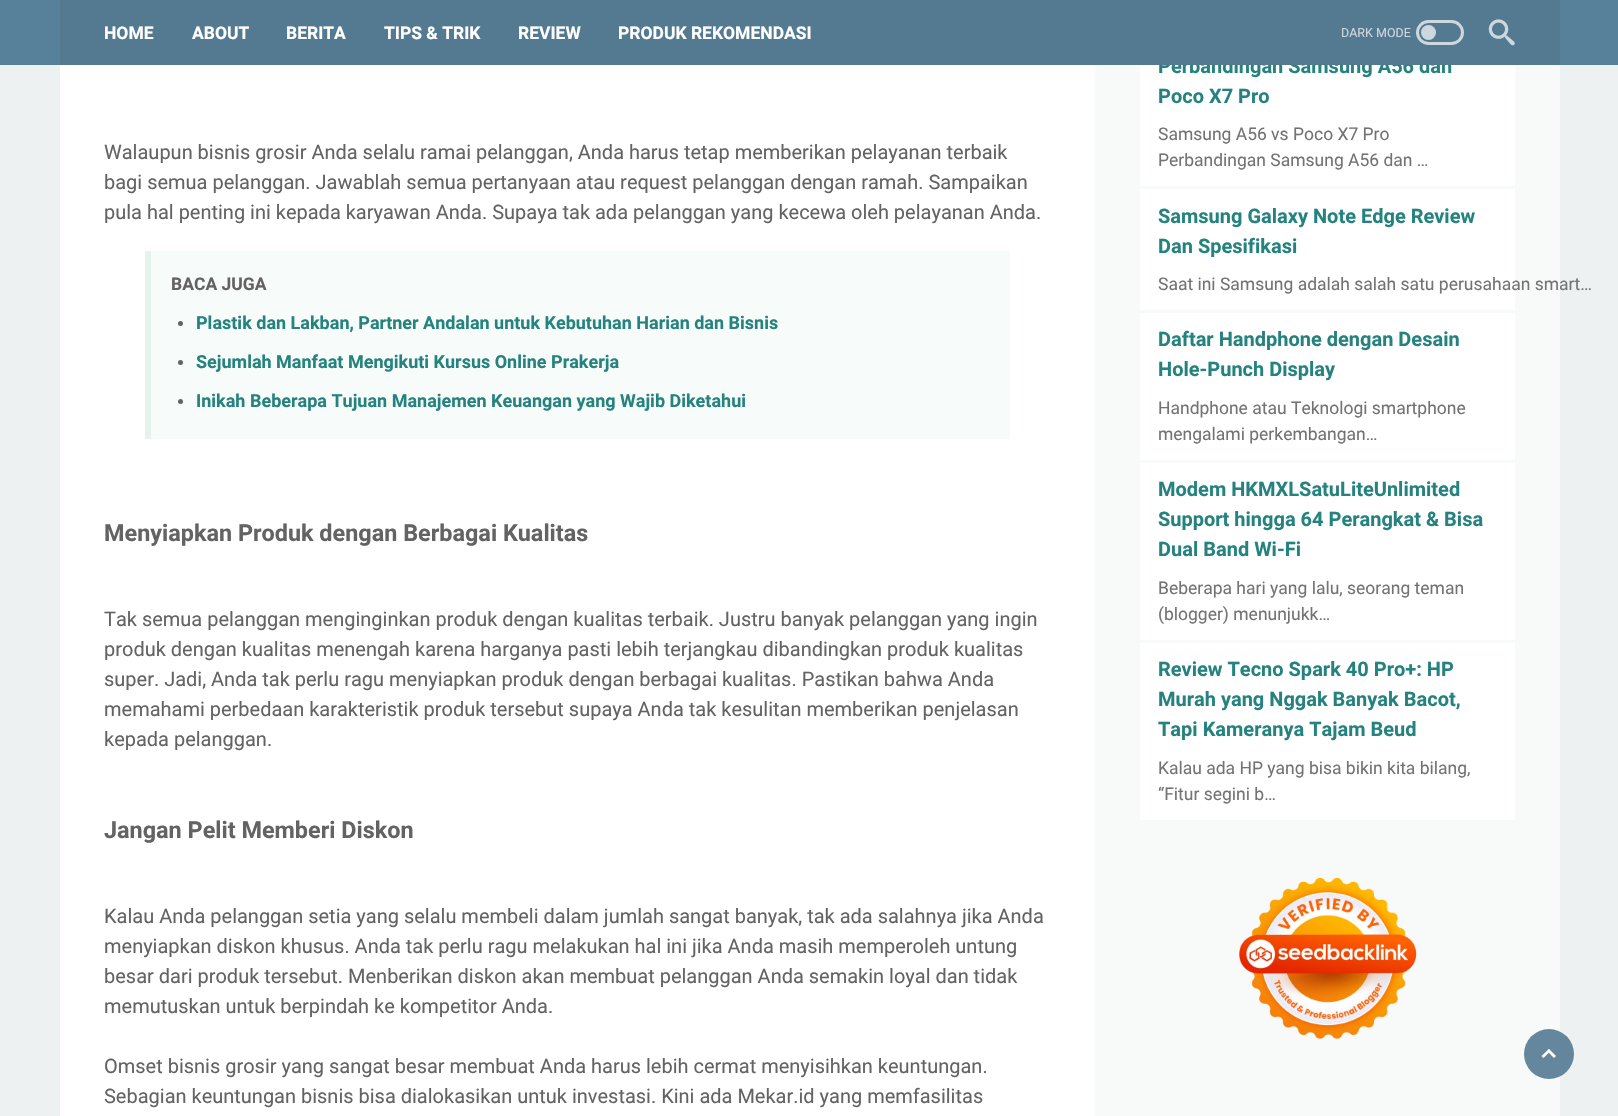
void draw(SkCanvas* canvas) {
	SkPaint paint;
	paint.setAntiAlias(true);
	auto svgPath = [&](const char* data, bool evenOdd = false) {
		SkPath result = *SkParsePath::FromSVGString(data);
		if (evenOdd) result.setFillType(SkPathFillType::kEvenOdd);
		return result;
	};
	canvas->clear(0xffedf1f2);
	paint.setColor(0xfff8fafa);
	canvas->drawRect(SkRect::MakeXYWH(1095, 65, 465, 1051), paint);
	paint.setColor(0xffffffff);
	canvas->drawRect(SkRect::MakeXYWH(1140, 65, 375, 121), paint);
	SkFont f1(fontMgr->matchFamilyStyle("Roboto", SkFontStyle::Bold()), 20);
	f1.setSubpixel(true);
	paint.setColor(0xff25837f);
	canvas->drawString("Perbandingan Samsung A56 dan", 1158, 73, f1, paint);
	paint.setColor(0xff57809a);
	canvas->drawRect(SkRect::MakeXYWH(0, 0, 1618, 65), paint);
	paint.setColor(0xff547a92);
	canvas->drawRect(SkRect::MakeXYWH(60, 0, 1500, 65), paint);
	SkFont f2(fontMgr->matchFamilyStyle("Roboto", SkFontStyle::Bold()), 17.5);
	f2.setSubpixel(true);
	paint.setColor(0xffffffff);
	canvas->drawString("HOME", 104, 39, f2, paint);
	canvas->drawString("ABOUT", 192, 39, f2, paint);
	canvas->drawString("BERITA", 286, 39, f2, paint);
	canvas->drawString("TIPS & TRIK", 384, 39, f2, paint);
	canvas->drawString("REVIEW", 518, 39, f2, paint);
	canvas->drawString("PRODUK REKOMENDASI", 618, 39, f2, paint);
	SkFont f3(fontMgr->matchFamilyStyle("Roboto", SkFontStyle::Normal()), 12.5);
	f3.setSubpixel(true);
	paint.setColor(0xffccd7de);
	canvas->drawString("DARK MODE", 1341, 37, f3, paint);
	paint.setStroke(true);
	paint.setStrokeWidth(3);
	canvas->drawRoundRect(SkRect::MakeXYWH(1417.5, 21.5, 45, 22), 11, 11, paint);
	paint.setStroke(false);
	canvas->drawCircle(1428.5, 32.5, 7.5, paint);
	canvas->drawImageRect(SkImages::DeferredFromEncodedData(SkData::MakeFromFileName("img1.png")), SkRect::MakeXYWH(1488, 19, 27, 27), SkSamplingOptions());
	paint.setColor(0xffffffff);
	canvas->drawRect(SkRect::MakeXYWH(60, 65, 1035, 1051), paint);
	SkFont f4(fontMgr->matchFamilyStyle("Roboto", SkFontStyle::Normal()), 20);
	f4.setSubpixel(true);
	paint.setColor(0xff636363);
	canvas->drawString("Walaupun bisnis grosir Anda selalu ramai pelanggan, Anda harus tetap memberikan pelayanan terbaik", 104, 159, f4, paint);
	canvas->drawString("bagi semua pelanggan. Jawablah semua pertanyaan atau request pelanggan dengan ramah. Sampaikan", 104, 189, f4, paint);
	canvas->drawString("pula hal penting ini kepada karyawan Anda. Supaya tak ada pelanggan yang kecewa oleh pelayanan Anda.", 104, 219, f4, paint);
	paint.setColor(0xfff7fbf9);
	canvas->drawRect(SkRect::MakeXYWH(151, 251, 859, 188), paint);
	paint.setColor(0xffe6f2eb);
	canvas->drawRect(SkRect::MakeXYWH(145, 251, 6, 188), paint);
	paint.setColor(0xff636363);
	canvas->drawString("BACA JUGA", 171, 290, f2, paint);
	canvas->drawCircle(180.5, 323.5, 2.5, paint);
	SkFont f5(fontMgr->matchFamilyStyle("Roboto", SkFontStyle::Bold()), 18);
	f5.setSubpixel(true);
	paint.setColor(0xff25837f);
	canvas->drawString("Plastik dan Lakban, Partner Andalan untuk Kebutuhan Harian dan Bisnis", 196, 329, f5, paint);
	paint.setColor(0xff636363);
	canvas->drawCircle(180.5, 362.5, 2.5, paint);
	paint.setColor(0xff25837f);
	canvas->drawString("Sejumlah Manfaat Mengikuti Kursus Online Prakerja", 196, 368, f5, paint);
	paint.setColor(0xff636363);
	canvas->drawCircle(180.5, 401.5, 2.5, paint);
	paint.setColor(0xff25837f);
	canvas->drawString("Inikah Beberapa Tujuan Manajemen Keuangan yang Wajib Diketahui", 196, 407, f5, paint);
	SkFont f6(fontMgr->matchFamilyStyle("Roboto", SkFontStyle::Bold()), 23.4);
	f6.setSubpixel(true);
	paint.setColor(0xff636363);
	canvas->drawString("Menyiapkan Produk dengan Berbagai Kualitas", 104, 541, f6, paint);
	canvas->drawString("Tak semua pelanggan menginginkan produk dengan kualitas terbaik. Justru banyak pelanggan yang ingin", 104, 626, f4, paint);
	canvas->drawString("produk dengan kualitas menengah karena harganya pasti lebih terjangkau dibandingkan produk kualitas", 104, 656, f4, paint);
	canvas->drawString("super. Jadi, Anda tak perlu ragu menyiapkan produk dengan berbagai kualitas. Pastikan bahwa Anda", 104, 686, f4, paint);
	canvas->drawString("memahami perbedaan karakteristik produk tersebut supaya Anda tak kesulitan memberikan penjelasan", 104, 716, f4, paint);
	canvas->drawString("kepada pelanggan.", 104, 746, f4, paint);
	canvas->drawString("Jangan Pelit Memberi Diskon", 104, 838, f6, paint);
	canvas->drawString("Kalau Anda pelanggan setia yang selalu membeli dalam jumlah sangat banyak, tak ada salahnya jika Anda", 104, 923, f4, paint);
	canvas->drawString("menyiapkan diskon khusus. Anda tak perlu ragu melakukan hal ini jika Anda masih memperoleh untung", 104, 953, f4, paint);
	canvas->drawString("besar dari produk tersebut. Menberikan diskon akan membuat pelanggan Anda semakin loyal dan tidak", 104, 983, f4, paint);
	canvas->drawString("memutuskan untuk berpindah ke kompetitor Anda.", 104, 1013, f4, paint);
	canvas->drawString("Omset bisnis grosir yang sangat besar membuat Anda harus lebih cermat menyisihkan keuntungan.", 104, 1073, f4, paint);
	canvas->drawString("Sebagian keuntungan bisnis bisa dialokasikan untuk investasi. Kini ada Mekar.id yang memfasilitas", 104, 1103, f4, paint);
	paint.setColor(0xff25837f);
	canvas->drawString("Poco X7 Pro", 1158, 103, f1, paint);
	SkFont f7(fontMgr->matchFamilyStyle("Roboto", SkFontStyle::Normal()), 17.5);
	f7.setSubpixel(true);
	paint.setColor(0xff737373);
	canvas->drawString("Samsung A56 vs Poco X7 Pro", 1158, 140, f7, paint);
	canvas->drawString("Perbandingan Samsung A56 dan …", 1158, 166, f7, paint);
	paint.setColor(0xffffffff);
	canvas->drawRect(SkRect::MakeXYWH(1140, 189, 375, 121), paint);
	paint.setColor(0xff25837f);
	canvas->drawString("Samsung Galaxy Note Edge Review", 1158, 223, f1, paint);
	canvas->drawString("Dan Spesifikasi", 1158, 253, f1, paint);
	paint.setColor(0xff737373);
	canvas->drawString("Saat ini Samsung adalah salah satu perusahaan smart…", 1158, 290, f7, paint);
	paint.setColor(0xffffffff);
	canvas->drawRect(SkRect::MakeXYWH(1140, 313, 375, 147), paint);
	paint.setColor(0xff25837f);
	canvas->drawString("Daftar Handphone dengan Desain", 1158, 346, f1, paint);
	canvas->drawString("Hole-Punch Display", 1158, 376, f1, paint);
	paint.setColor(0xff737373);
	canvas->drawString("Handphone atau Teknologi smartphone", 1158, 414, f7, paint);
	canvas->drawString("mengalami perkembangan…", 1158, 440, f7, paint);
	paint.setColor(0xffffffff);
	canvas->drawRect(SkRect::MakeXYWH(1140, 463, 375, 177), paint);
	paint.setColor(0xff25837f);
	canvas->drawString("Modem HKMXLSatuLiteUnlimited", 1158, 496, f1, paint);
	canvas->drawString("Support hingga 64 Perangkat & Bisa", 1158, 526, f1, paint);
	canvas->drawString("Dual Band Wi-Fi", 1158, 556, f1, paint);
	paint.setColor(0xff737373);
	canvas->drawString("Beberapa hari yang lalu, seorang teman", 1158, 594, f7, paint);
	canvas->drawString("(blogger) menunjukk…", 1158, 620, f7, paint);
	paint.setColor(0xffffffff);
	canvas->drawRect(SkRect::MakeXYWH(1140, 643, 375, 177), paint);
	paint.setColor(0xff25837f);
	canvas->drawString("Review Tecno Spark 40 Pro+: HP", 1158, 676, f1, paint);
	canvas->drawString("Murah yang Nggak Banyak Bacot,", 1158, 706, f1, paint);
	canvas->drawString("Tapi Kameranya Tajam Beud", 1158, 736, f1, paint);
	paint.setColor(0xff737373);
	canvas->drawString("Kalau ada HP yang bisa bikin kita bilang,", 1158, 774, f7, paint);
	canvas->drawString("“Fitur segini b…", 1158, 800, f7, paint);
	canvas->drawImageRect(SkImages::DeferredFromEncodedData(SkData::MakeFromFileName("img2.png")), SkRect::MakeXYWH(1239, 877, 178, 163), SkSamplingOptions());
	paint.setColor(0xe6547a92);
	canvas->drawCircle(1549, 1054, 25, paint);
	paint.setColor(0xfffeffff);
	canvas->drawPath(svgPath("M1541.5 1056L1549 1049L1550.5 1051L1543.5 1058Z"), paint);
	canvas->drawPath(svgPath("M1547 1051L1549 1049L1556 1056L1554 1058Z"), paint);
}
